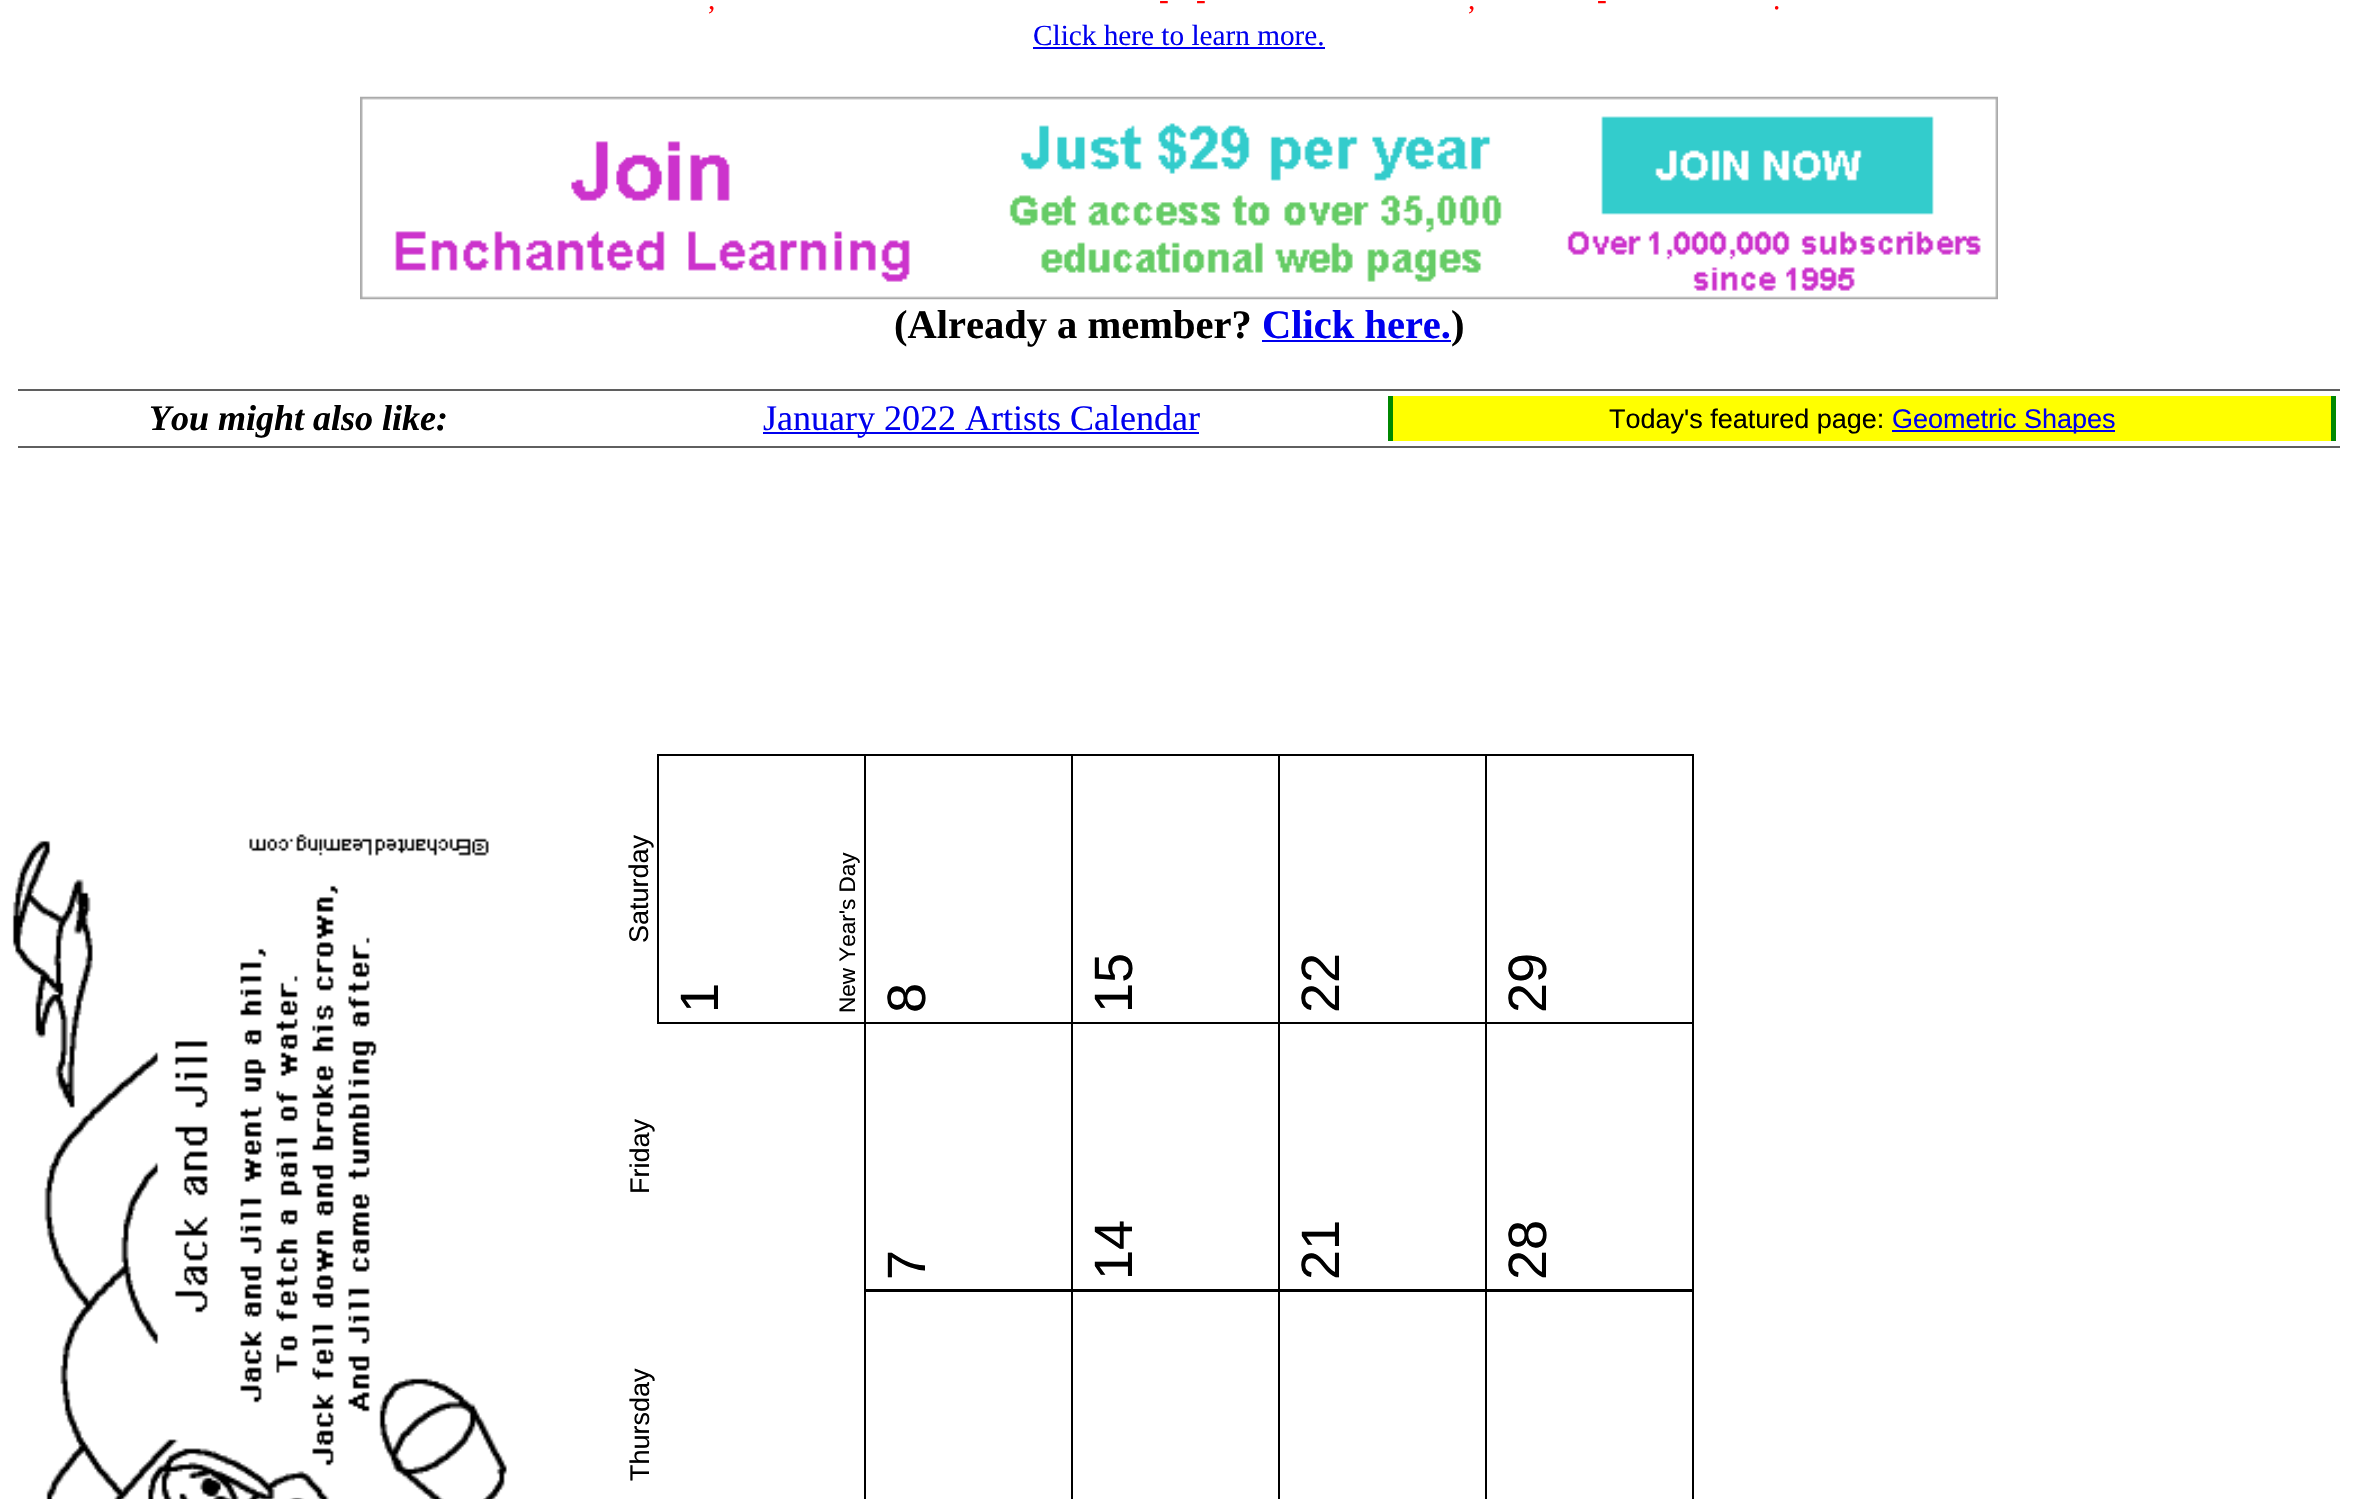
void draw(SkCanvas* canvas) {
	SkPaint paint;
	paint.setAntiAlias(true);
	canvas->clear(0xffffffff);
	SkFont f1(fontMgr->matchFamilyStyle("Liberation Serif", SkFontStyle::Normal()), 29.25);
	f1.setSubpixel(true);
	paint.setColor(0xffff0000);
	canvas->drawString("-", 1159, 9, f1, paint);
	canvas->drawString("-", 1196, 9, f1, paint);
	canvas->drawString("-", 1597, 9, f1, paint);
	canvas->drawString(",", 708, 9, f1, paint);
	canvas->drawString(",", 1468, 9, f1, paint);
	canvas->drawString(".", 1773, 9, f1, paint);
	paint.setColor(0xff0000ee);
	canvas->drawString("Click here to learn more.", 1033, 45, f1, paint);
	canvas->drawRect(SkRect::MakeXYWH(1033, 47, 292, 2), paint);
	canvas->drawImageRect(SkImages::DeferredFromEncodedData(SkData::MakeFromFileName("img1.png")), SkRect::MakeXYWH(360, 96, 1638, 204), SkSamplingOptions());
	SkFont f2(fontMgr->matchFamilyStyle("Liberation Serif", SkFontStyle::Bold()), 40.5);
	f2.setSubpixel(true);
	paint.setColor(0xff000000);
	canvas->drawString("(Already a member?", 894, 338, f2, paint);
	paint.setColor(0xff0000ee);
	canvas->drawString("Click here.", 1262, 338, f2, paint);
	paint.setColor(0xff000000);
	canvas->drawString(")", 1451, 338, f2, paint);
	paint.setColor(0xff0000ee);
	canvas->drawRect(SkRect::MakeXYWH(1262, 340, 189, 2), paint);
	paint.setColor(0xff5f5f5f);
	canvas->drawRect(SkRect::MakeXYWH(18, 389, 2322, 2), paint);
	canvas->drawRect(SkRect::MakeXYWH(18, 446, 2322, 2), paint);
	SkFont f3(fontMgr->matchFamilyStyle("Liberation Serif", SkFontStyle::BoldItalic()), 36);
	f3.setSubpixel(true);
	paint.setColor(0xff000000);
	canvas->drawString("You might also like:", 149, 430, f3, paint);
	paint.setColor(0xff0000ee);
	canvas->drawRect(SkRect::MakeXYWH(763, 432, 436, 2), paint);
	SkFont f4(fontMgr->matchFamilyStyle("Liberation Serif", SkFontStyle::Normal()), 36);
	f4.setSubpixel(true);
	canvas->drawString("January 2022 Artists Calendar", 763, 430, f4, paint);
	paint.setColor(0xffffff00);
	canvas->drawRect(SkRect::MakeXYWH(1393, 396, 938, 45), paint);
	paint.setColor(0xff008800);
	canvas->drawRect(SkRect::MakeXYWH(2331, 396, 5, 45), paint);
	canvas->drawRect(SkRect::MakeXYWH(1388, 396, 5, 45), paint);
	SkFont f5(fontMgr->matchFamilyStyle("Liberation Sans", SkFontStyle::Normal()), 27);
	f5.setSubpixel(true);
	paint.setColor(0xff000000);
	canvas->drawString("Today's featured page:", 1609, 428, f5, paint);
	paint.setColor(0xff0000ee);
	canvas->drawRect(SkRect::MakeXYWH(1892, 430, 223, 2), paint);
	canvas->drawString("Geometric Shapes", 1892, 428, f5, paint);
	canvas->drawImageRect(SkImages::DeferredFromEncodedData(SkData::MakeFromFileName("img2.png")), SkRect::MakeXYWH(12, 834, 495, 665), SkSamplingOptions());
	paint.setColor(0xff000000);
	canvas->save();
	canvas->rotate(-90, 648, 943);
	canvas->drawString("Saturday", 648, 943, f5, paint);
	canvas->restore();
	canvas->save();
	canvas->rotate(-90, 649, 1194);
	canvas->drawString("Friday", 649, 1194, f5, paint);
	canvas->restore();
	canvas->save();
	canvas->rotate(-90, 649, 1481);
	canvas->drawString("Thursday", 649, 1481, f5, paint);
	canvas->restore();
	canvas->drawRect(SkRect::MakeXYWH(657, 754, 2, 270), paint);
	canvas->drawRect(SkRect::MakeXYWH(864, 754, 2, 270), paint);
	canvas->drawRect(SkRect::MakeXYWH(1071, 754, 2, 270), paint);
	canvas->drawRect(SkRect::MakeXYWH(1278, 754, 2, 270), paint);
	canvas->drawRect(SkRect::MakeXYWH(1485, 754, 2, 270), paint);
	canvas->drawRect(SkRect::MakeXYWH(1485, 754, 209, 2), paint);
	canvas->drawRect(SkRect::MakeXYWH(1278, 754, 209, 2), paint);
	canvas->drawRect(SkRect::MakeXYWH(1071, 754, 209, 2), paint);
	canvas->drawRect(SkRect::MakeXYWH(864, 754, 209, 2), paint);
	canvas->drawRect(SkRect::MakeXYWH(657, 754, 209, 2), paint);
	canvas->drawRect(SkRect::MakeXYWH(1692, 754, 2, 270), paint);
	canvas->drawRect(SkRect::MakeXYWH(1485, 1022, 209, 2), paint);
	canvas->drawRect(SkRect::MakeXYWH(1485, 1022, 2, 270), paint);
	canvas->drawRect(SkRect::MakeXYWH(1278, 1022, 209, 2), paint);
	canvas->drawRect(SkRect::MakeXYWH(1278, 1022, 2, 270), paint);
	canvas->drawRect(SkRect::MakeXYWH(1071, 1022, 209, 2), paint);
	canvas->drawRect(SkRect::MakeXYWH(1071, 1022, 2, 270), paint);
	canvas->drawRect(SkRect::MakeXYWH(864, 1022, 209, 2), paint);
	canvas->drawRect(SkRect::MakeXYWH(864, 1022, 2, 270), paint);
	canvas->drawRect(SkRect::MakeXYWH(657, 1022, 209, 2), paint);
	SkFont f6(fontMgr->matchFamilyStyle("Liberation Sans", SkFontStyle::Normal()), 54);
	f6.setSubpixel(true);
	canvas->save();
	canvas->rotate(-90, 718, 1013);
	canvas->drawString("1", 718, 1013, f6, paint);
	canvas->restore();
	SkFont f7(fontMgr->matchFamilyStyle("Liberation Sans", SkFontStyle::Normal()), 22.5);
	f7.setSubpixel(true);
	canvas->save();
	canvas->rotate(-90, 855, 1013);
	canvas->drawString("New Year's Day", 855, 1013, f7, paint);
	canvas->restore();
	canvas->save();
	canvas->rotate(-90, 925, 1013);
	canvas->drawString("8", 925, 1013, f6, paint);
	canvas->restore();
	canvas->drawRect(SkRect::MakeXYWH(1692, 1022, 2, 270), paint);
	canvas->drawRect(SkRect::MakeXYWH(1485, 1289, 209, 3), paint);
	canvas->drawRect(SkRect::MakeXYWH(1485, 1289, 2, 210), paint);
	canvas->drawRect(SkRect::MakeXYWH(1278, 1289, 209, 3), paint);
	canvas->drawRect(SkRect::MakeXYWH(1278, 1289, 2, 210), paint);
	canvas->drawRect(SkRect::MakeXYWH(1071, 1289, 209, 3), paint);
	canvas->drawRect(SkRect::MakeXYWH(1071, 1289, 2, 210), paint);
	canvas->drawRect(SkRect::MakeXYWH(864, 1289, 209, 3), paint);
	canvas->save();
	canvas->rotate(-90, 925, 1280);
	canvas->drawString("7", 925, 1280, f6, paint);
	canvas->restore();
	canvas->drawRect(SkRect::MakeXYWH(864, 1289, 2, 210), paint);
	canvas->save();
	canvas->rotate(-90, 1132, 1013);
	canvas->drawString("15", 1132, 1013, f6, paint);
	canvas->restore();
	canvas->save();
	canvas->rotate(-90, 1132, 1280);
	canvas->drawString("14", 1132, 1280, f6, paint);
	canvas->restore();
	canvas->save();
	canvas->rotate(-90, 1339, 1013);
	canvas->drawString("22", 1339, 1013, f6, paint);
	canvas->restore();
	canvas->save();
	canvas->rotate(-90, 1339, 1280);
	canvas->drawString("21", 1339, 1280, f6, paint);
	canvas->restore();
	canvas->save();
	canvas->rotate(-90, 1546, 1013);
	canvas->drawString("29", 1546, 1013, f6, paint);
	canvas->restore();
	canvas->save();
	canvas->rotate(-90, 1546, 1280);
	canvas->drawString("28", 1546, 1280, f6, paint);
	canvas->restore();
	canvas->drawRect(SkRect::MakeXYWH(1692, 1289, 2, 210), paint);
}
